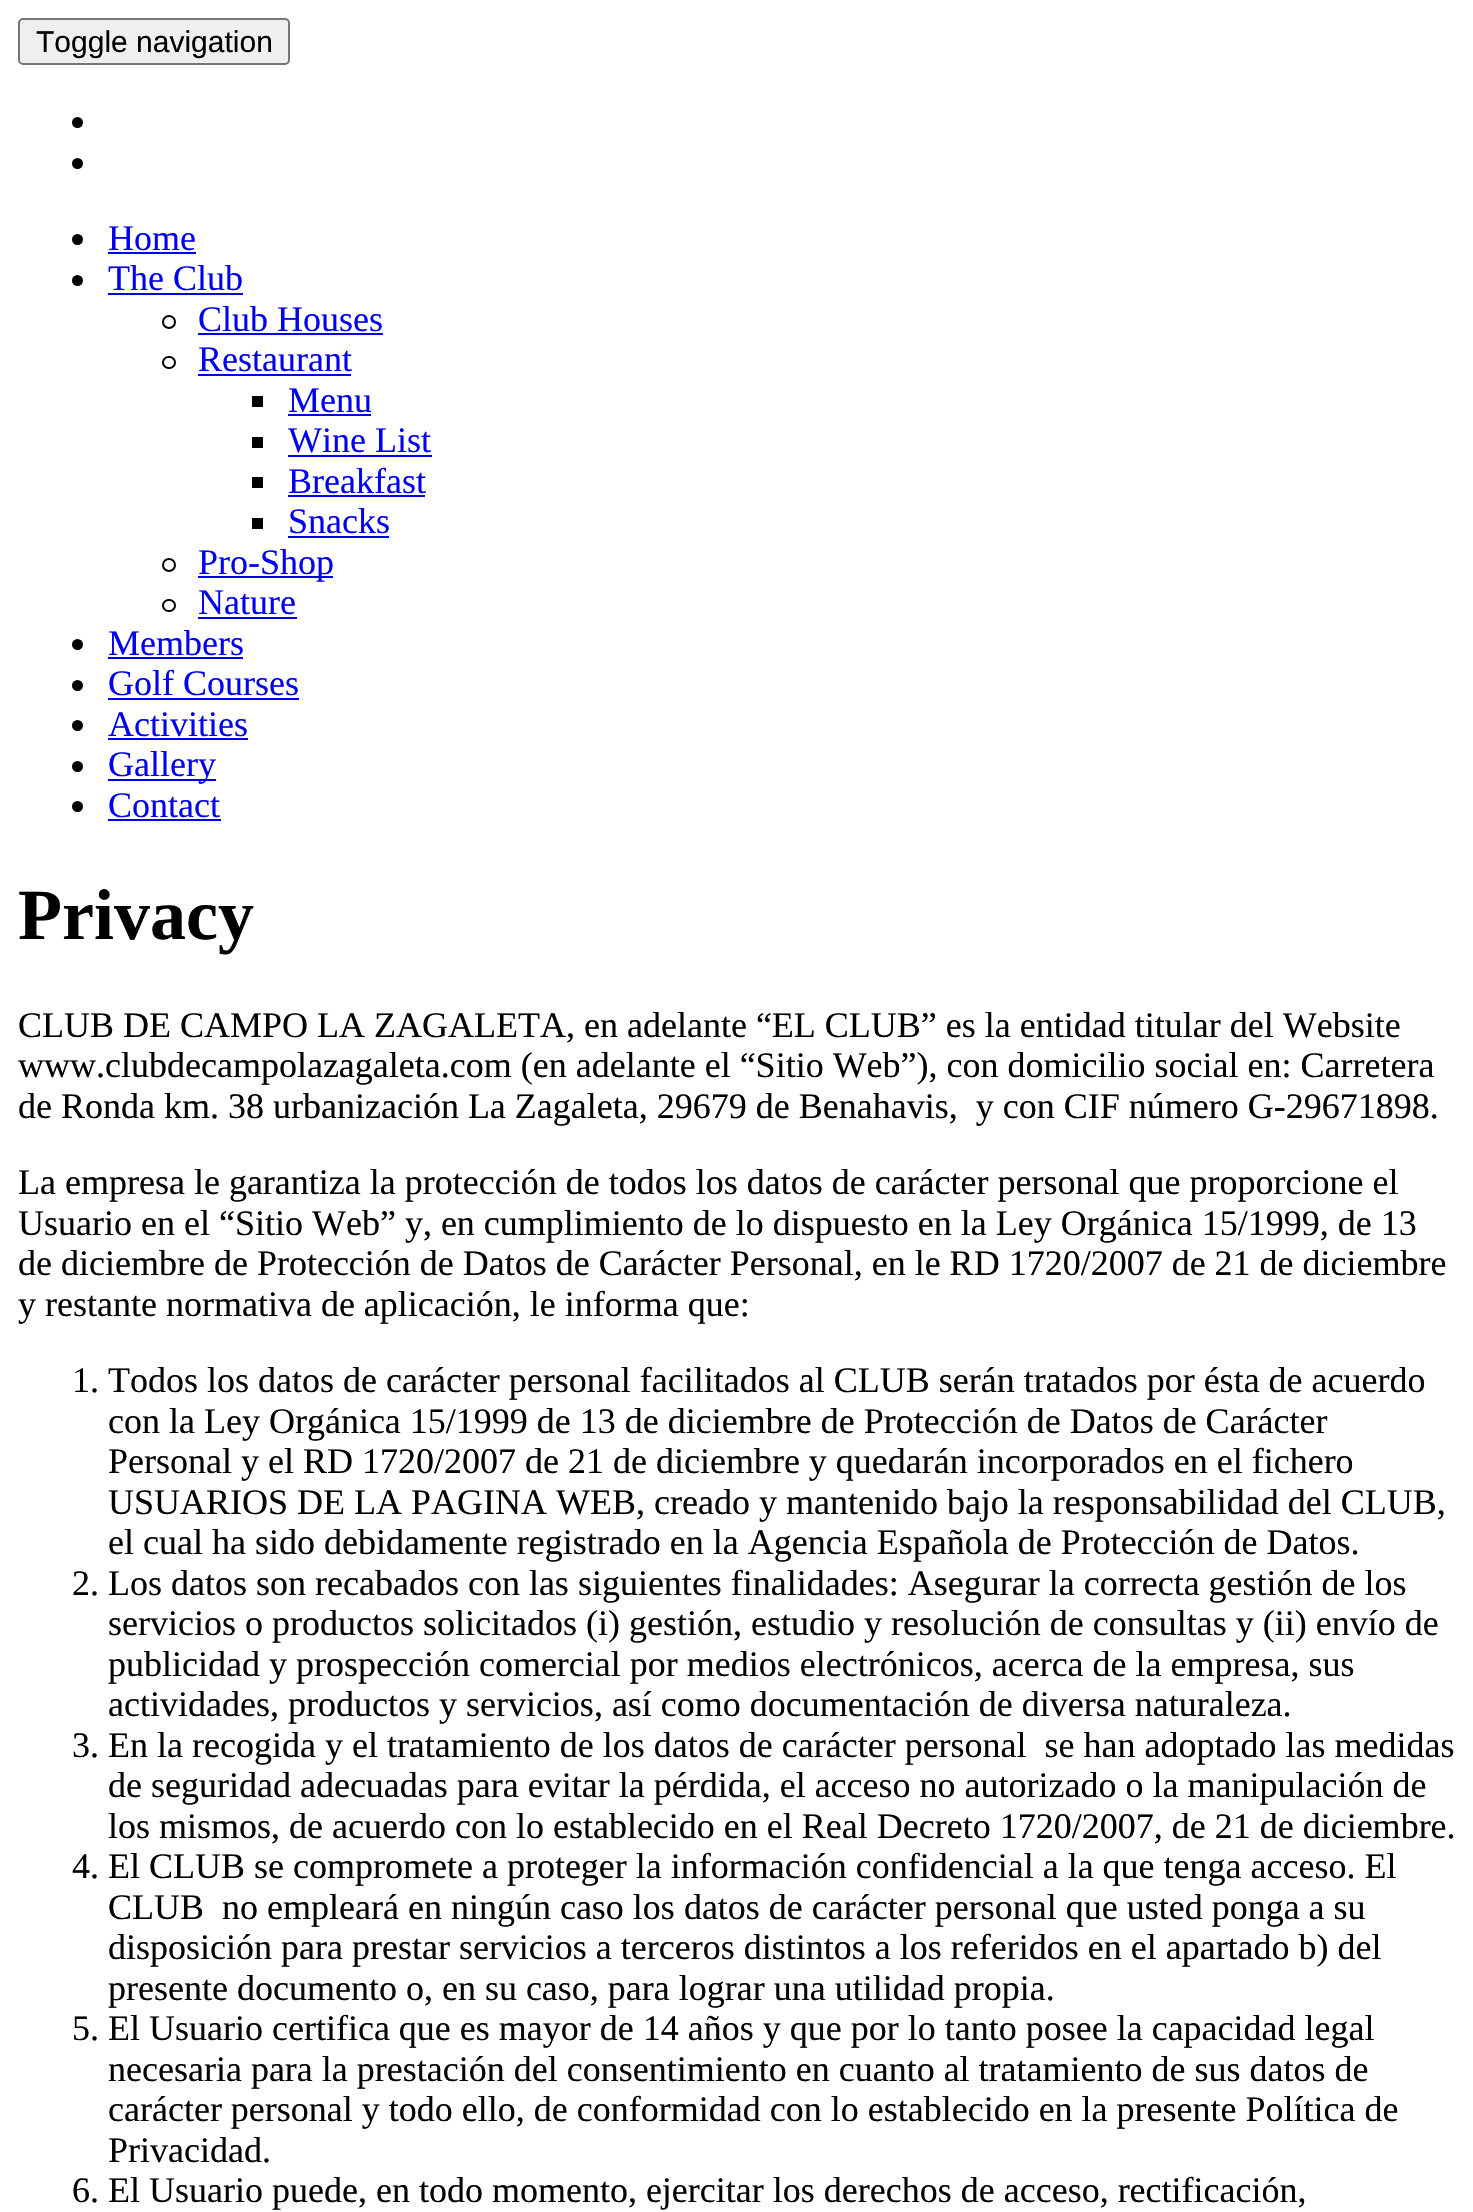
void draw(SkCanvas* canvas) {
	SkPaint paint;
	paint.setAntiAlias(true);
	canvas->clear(0xffffffff);
	paint.setColor(0xffefefef);
	canvas->drawRoundRect(SkRect::MakeXYWH(19, 19, 270, 45), 4, 4, paint);
	paint.setStroke(true);
	paint.setStrokeWidth(2);
	paint.setColor(0xff767676);
	canvas->drawRoundRect(SkRect::MakeXYWH(19, 19, 270, 45), 4, 4, paint);
	SkFont f1(fontMgr->matchFamilyStyle("Liberation Sans", SkFontStyle::Normal()), 30);
	f1.setSubpixel(true);
	paint.setStroke(false);
	paint.setColor(0xff000000);
	canvas->drawString("Toggle navigation", 36, 52, f1, paint);
	canvas->drawCircle(77.5, 122.5, 5.5, paint);
	canvas->drawCircle(77.5, 163.5, 5.5, paint);
	canvas->drawCircle(77.5, 239.5, 5.5, paint);
	SkFont f2(fontMgr->matchFamilyStyle("Liberation Serif", SkFontStyle::Normal()), 36);
	f2.setSubpixel(true);
	paint.setColor(0xff0000ee);
	canvas->drawString("Home", 108, 250, f2, paint);
	canvas->drawRect(SkRect::MakeXYWH(108, 252, 88, 2), paint);
	paint.setColor(0xff000000);
	canvas->drawCircle(77.5, 280.5, 5.5, paint);
	paint.setColor(0xff0000ee);
	canvas->drawString("The Club", 108, 290, f2, paint);
	canvas->drawRect(SkRect::MakeXYWH(108, 293, 135, 2), paint);
	paint.setStroke(true);
	paint.setColor(0xff000000);
	canvas->drawCircle(169, 322, 6, paint);
	paint.setStroke(false);
	paint.setColor(0xff0000ee);
	canvas->drawString("Club Houses", 198, 331, f2, paint);
	canvas->drawRect(SkRect::MakeXYWH(198, 333, 185, 2), paint);
	paint.setStroke(true);
	paint.setColor(0xff000000);
	canvas->drawRoundRect(SkRect::MakeXYWH(163, 357, 12, 11), 5.5, 5.5, paint);
	paint.setStroke(false);
	paint.setColor(0xff0000ee);
	canvas->drawString("Restaurant", 198, 371, f2, paint);
	canvas->drawRect(SkRect::MakeXYWH(198, 374, 153, 2), paint);
	paint.setColor(0xff000000);
	canvas->drawRect(SkRect::MakeXYWH(252, 396, 11, 11), paint);
	paint.setColor(0xff0000ee);
	canvas->drawString("Menu", 288, 412, f2, paint);
	canvas->drawRect(SkRect::MakeXYWH(288, 414, 83, 2), paint);
	paint.setColor(0xff000000);
	canvas->drawRect(SkRect::MakeXYWH(252, 437, 11, 11), paint);
	paint.setColor(0xff0000ee);
	canvas->drawString("Wine List", 288, 452, f2, paint);
	canvas->drawRect(SkRect::MakeXYWH(288, 455, 144, 2), paint);
	paint.setColor(0xff000000);
	canvas->drawRect(SkRect::MakeXYWH(252, 477, 11, 11), paint);
	paint.setColor(0xff0000ee);
	canvas->drawString("Breakfast", 288, 493, f2, paint);
	canvas->drawRect(SkRect::MakeXYWH(288, 495, 137, 2), paint);
	paint.setColor(0xff000000);
	canvas->drawRect(SkRect::MakeXYWH(252, 518, 11, 11), paint);
	paint.setColor(0xff0000ee);
	canvas->drawString("Snacks", 288, 533, f2, paint);
	canvas->drawRect(SkRect::MakeXYWH(288, 536, 101, 2), paint);
	paint.setStroke(true);
	paint.setColor(0xff000000);
	canvas->drawCircle(169, 565, 6, paint);
	paint.setStroke(false);
	paint.setColor(0xff0000ee);
	canvas->drawRect(SkRect::MakeXYWH(198, 576, 135, 2), paint);
	canvas->drawString("Pro-Shop", 198, 574, f2, paint);
	paint.setStroke(true);
	paint.setColor(0xff000000);
	canvas->drawRoundRect(SkRect::MakeXYWH(163, 600, 12, 11), 5.5, 5.5, paint);
	paint.setStroke(false);
	paint.setColor(0xff0000ee);
	canvas->drawString("Nature", 198, 614, f2, paint);
	canvas->drawRect(SkRect::MakeXYWH(198, 617, 99, 2), paint);
	paint.setColor(0xff000000);
	canvas->drawCircle(77.5, 644.5, 5.5, paint);
	paint.setColor(0xff0000ee);
	canvas->drawString("Members", 108, 655, f2, paint);
	canvas->drawRect(SkRect::MakeXYWH(108, 657, 135, 2), paint);
	paint.setColor(0xff000000);
	canvas->drawCircle(77.5, 685.5, 5.5, paint);
	paint.setColor(0xff0000ee);
	canvas->drawString("Golf Courses", 108, 695, f2, paint);
	canvas->drawRect(SkRect::MakeXYWH(108, 698, 191, 2), paint);
	paint.setColor(0xff000000);
	canvas->drawCircle(77.5, 725.5, 5.5, paint);
	paint.setColor(0xff0000ee);
	canvas->drawString("Activities", 108, 736, f2, paint);
	canvas->drawRect(SkRect::MakeXYWH(108, 738, 140, 2), paint);
	paint.setColor(0xff000000);
	canvas->drawCircle(77.5, 766.5, 5.5, paint);
	paint.setColor(0xff0000ee);
	canvas->drawRect(SkRect::MakeXYWH(108, 779, 108, 2), paint);
	canvas->drawString("Gallery", 108, 776, f2, paint);
	paint.setColor(0xff000000);
	canvas->drawCircle(77.5, 806.5, 5.5, paint);
	paint.setColor(0xff0000ee);
	canvas->drawString("Contact", 108, 817, f2, paint);
	canvas->drawRect(SkRect::MakeXYWH(108, 819, 113, 2), paint);
	SkFont f3(fontMgr->matchFamilyStyle("Liberation Serif", SkFontStyle::Bold()), 72);
	f3.setSubpixel(true);
	paint.setColor(0xff000000);
	canvas->drawString("Privacy", 18, 939, f3, paint);
	canvas->drawString("CLUB DE CAMPO LA ZAGALETA, en adelante “EL CLUB” es la entidad titular del Website", 18, 1037, f2, paint);
	canvas->drawString("www.clubdecampolazagaleta.com (en adelante el “Sitio Web”), con domicilio social en: Carretera", 18, 1077, f2, paint);
	canvas->drawString("de Ronda km. 38 urbanización La Zagaleta, 29679 de Benahavis,  y con CIF número G-29671898.", 18, 1118, f2, paint);
	canvas->drawString("La empresa le garantiza la protección de todos los datos de carácter personal que proporcione el", 18, 1194, f2, paint);
	canvas->drawString("Usuario en el “Sitio Web” y, en cumplimiento de lo dispuesto en la Ley Orgánica 15/1999, de 13", 18, 1235, f2, paint);
	canvas->drawString("de diciembre de Protección de Datos de Carácter Personal, en le RD 1720/2007 de 21 de diciembre", 18, 1275, f2, paint);
	canvas->drawString("y restante normativa de aplicación, le informa que:", 18, 1316, f2, paint);
	canvas->drawString("1. Todos los datos de carácter personal facilitados al CLUB serán tratados por ésta de acuerdo", 72, 1392, f2, paint);
	canvas->drawString("con la Ley Orgánica 15/1999 de 13 de diciembre de Protección de Datos de Carácter", 108, 1433, f2, paint);
	canvas->drawString("Personal y el RD 1720/2007 de 21 de diciembre y quedarán incorporados en el fichero", 108, 1473, f2, paint);
	canvas->drawString("USUARIOS DE LA PAGINA WEB, creado y mantenido bajo la responsabilidad del CLUB,", 108, 1514, f2, paint);
	canvas->drawString("el cual ha sido debidamente registrado en la Agencia Española de Protección de Datos.", 108, 1554, f2, paint);
	canvas->drawString("2. Los datos son recabados con las siguientes finalidades: Asegurar la correcta gestión de los", 72, 1595, f2, paint);
	canvas->drawString("servicios o productos solicitados (i) gestión, estudio y resolución de consultas y (ii) envío de", 108, 1635, f2, paint);
	canvas->drawString("publicidad y prospección comercial por medios electrónicos, acerca de la empresa, sus", 108, 1676, f2, paint);
	canvas->drawString("actividades, productos y servicios, así como documentación de diversa naturaleza.", 108, 1716, f2, paint);
	canvas->drawString("3. En la recogida y el tratamiento de los datos de carácter personal  se han adoptado las medidas", 72, 1757, f2, paint);
	canvas->drawString("de seguridad adecuadas para evitar la pérdida, el acceso no autorizado o la manipulación de", 108, 1797, f2, paint);
	canvas->drawString("los mismos, de acuerdo con lo establecido en el Real Decreto 1720/2007, de 21 de diciembre.", 108, 1838, f2, paint);
	canvas->drawString("4. El CLUB se compromete a proteger la información confidencial a la que tenga acceso. El", 72, 1878, f2, paint);
	canvas->drawString("CLUB  no empleará en ningún caso los datos de carácter personal que usted ponga a su", 108, 1919, f2, paint);
	canvas->drawString("disposición para prestar servicios a terceros distintos a los referidos en el apartado b) del", 108, 1959, f2, paint);
	canvas->drawString("presente documento o, en su caso, para lograr una utilidad propia.", 108, 2000, f2, paint);
	canvas->drawString("5. El Usuario certifica que es mayor de 14 años y que por lo tanto posee la capacidad legal", 72, 2040, f2, paint);
	canvas->drawString("necesaria para la prestación del consentimiento en cuanto al tratamiento de sus datos de", 108, 2081, f2, paint);
	canvas->drawString("carácter personal y todo ello, de conformidad con lo establecido en la presente Política de", 108, 2121, f2, paint);
	canvas->drawString("Privacidad.", 108, 2162, f2, paint);
	canvas->drawString("6. El Usuario puede, en todo momento, ejercitar los derechos de acceso, rectificación,", 72, 2202, f2, paint);
}
